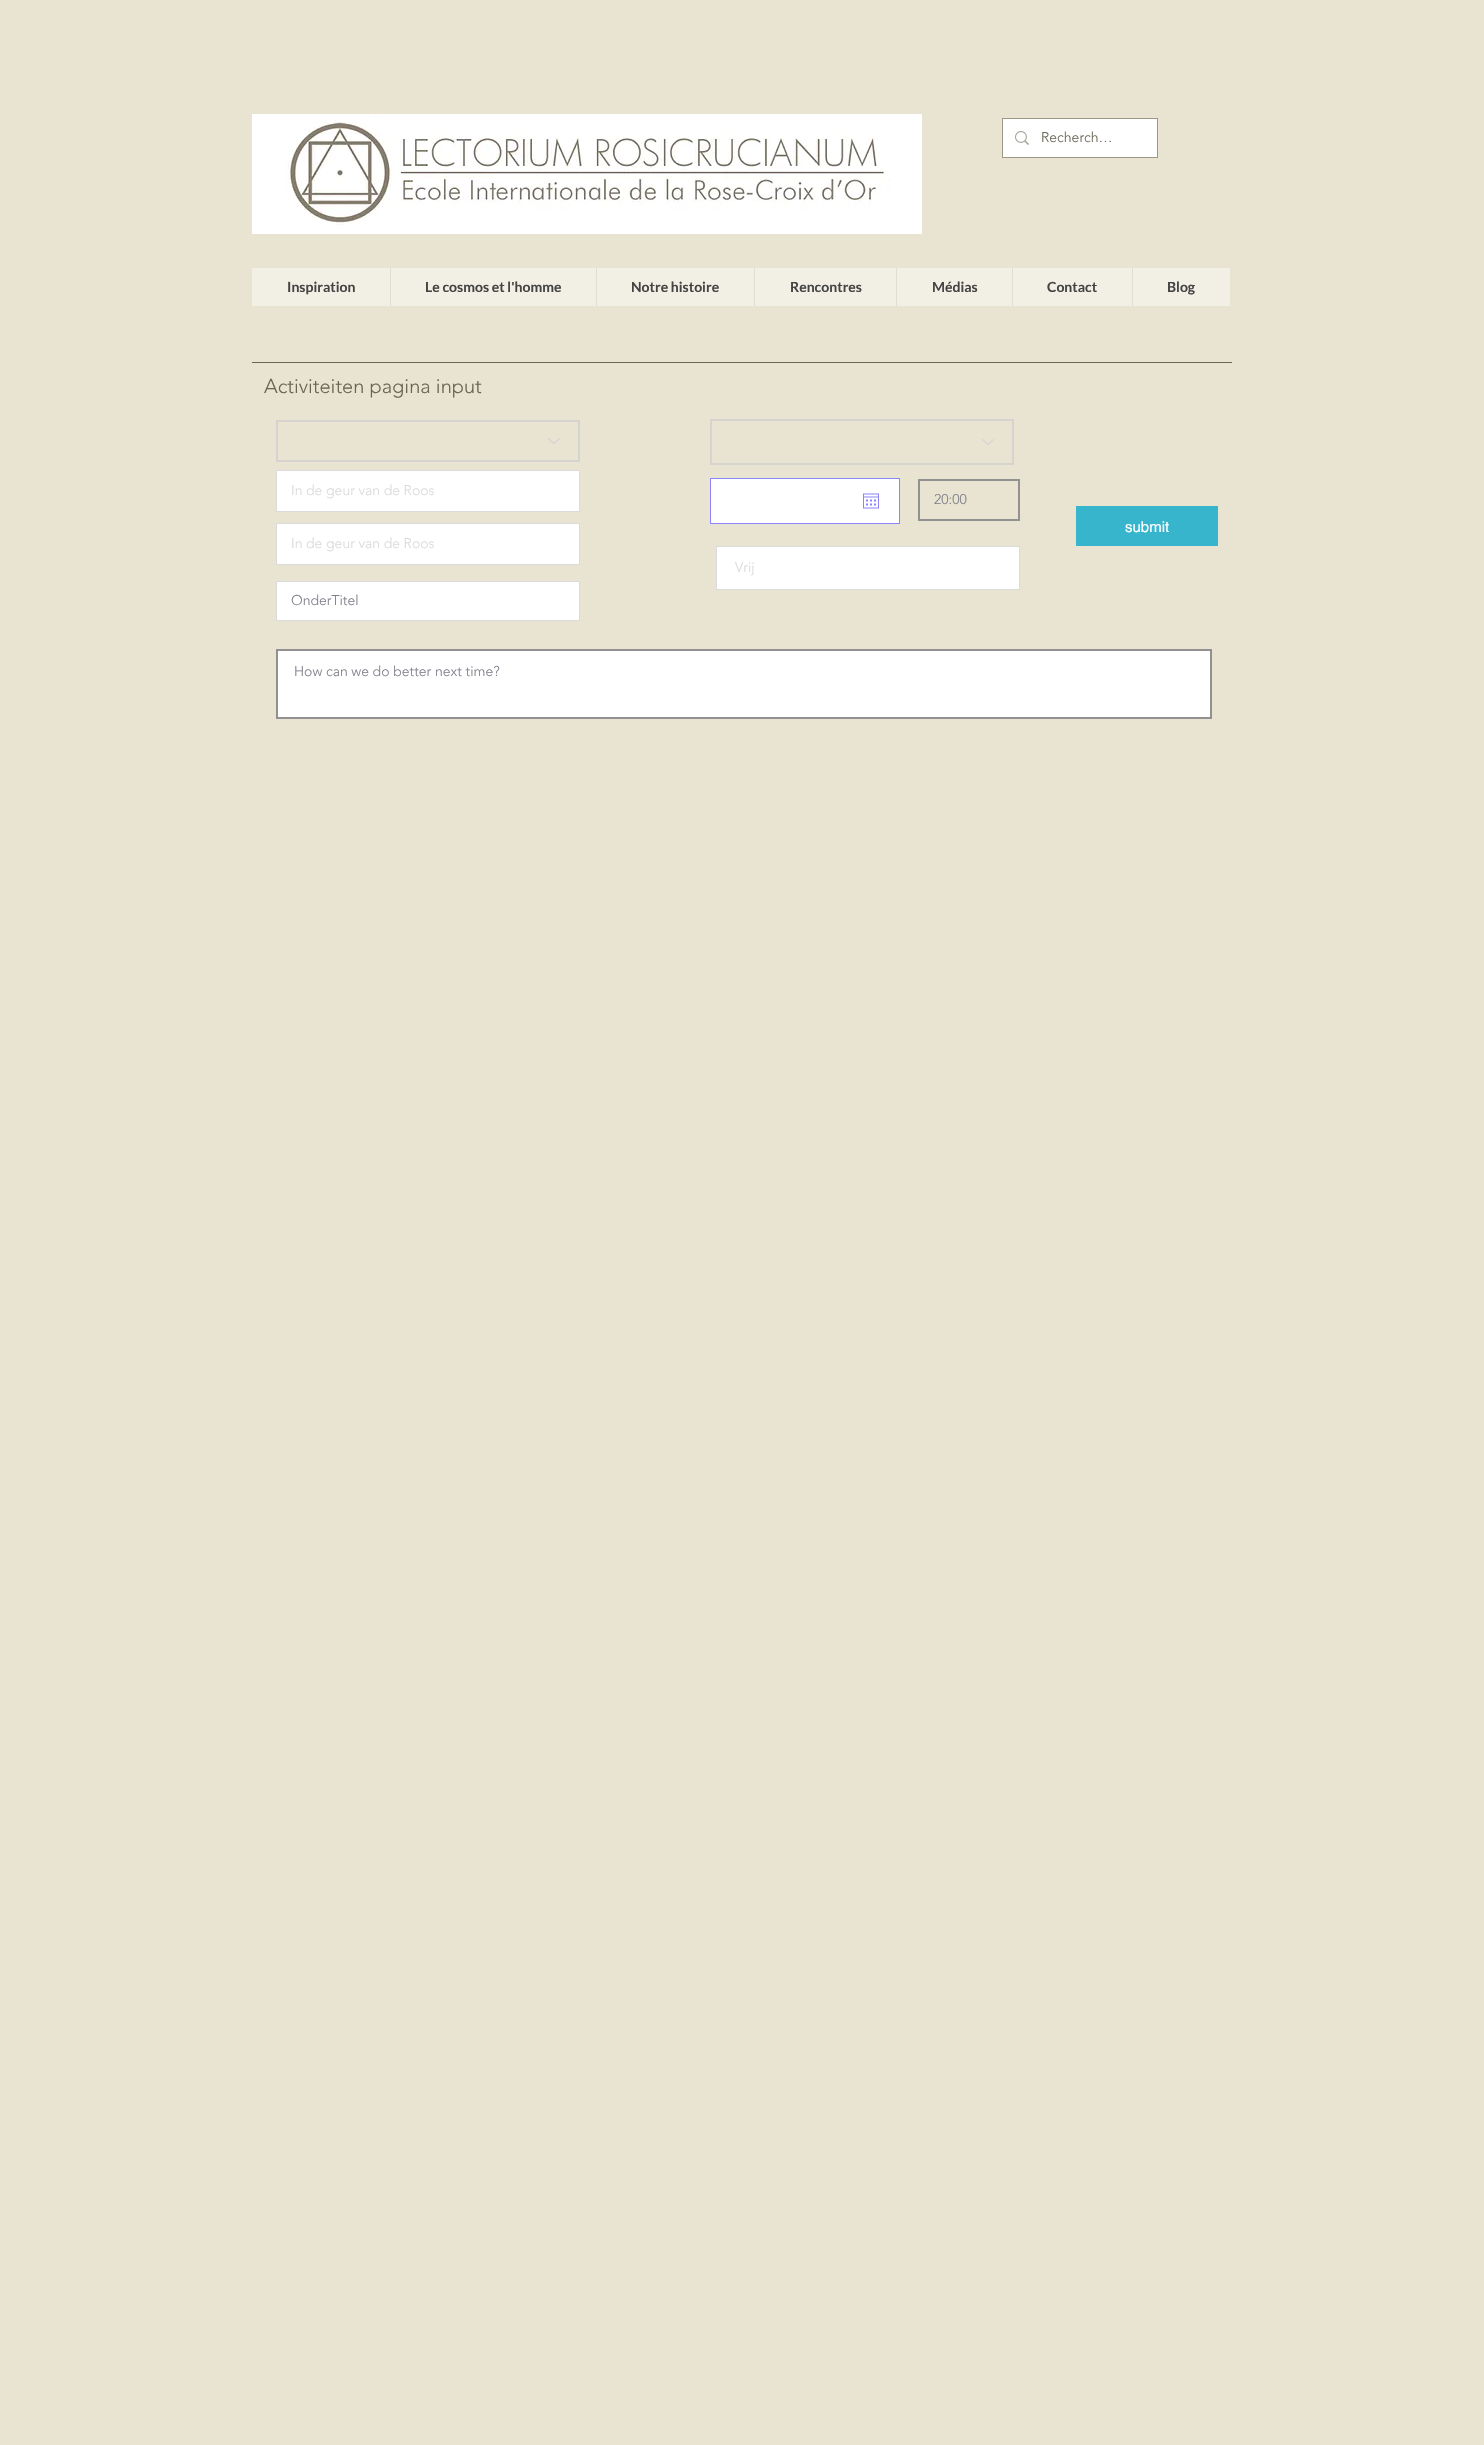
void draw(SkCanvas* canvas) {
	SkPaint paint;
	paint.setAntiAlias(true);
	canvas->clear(0xffe9e4d1);
	canvas->drawImageRect(SkImages::DeferredFromEncodedData(SkData::MakeFromFileName("img1.png")), SkRect::MakeXYWH(252, 114, 670, 120), SkSamplingOptions());
	paint.setStroke(true);
	paint.setStrokeWidth(1);
	paint.setColor(0xff9c9886);
	canvas->drawRect(SkRect::MakeXYWH(1002.5, 118.5, 155, 39), paint);
	paint.setStroke(false);
	paint.setColor(0xffffffff);
	canvas->drawRect(SkRect::MakeXYWH(1003, 119, 154, 38), paint);
	canvas->drawImageRect(SkImages::DeferredFromEncodedData(SkData::MakeFromFileName("img2.png")), SkRect::MakeXYWH(1015, 131, 14, 14), SkSamplingOptions());
	SkFont f1(fontMgr->matchFamilyStyle("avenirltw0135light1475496", SkFontStyle(300, SkFontStyle::kNormal_Width, SkFontStyle::kUpright_Slant)), 14);
	f1.setSubpixel(true);
	paint.setColor(0xff696554);
	canvas->drawString("Recherch…", 1041, 142, f1, paint);
	paint.setColor(0xfff2efe4);
	canvas->drawRect(SkRect::MakeXYWH(252, 268, 978, 38), paint);
	SkFont f2(fontMgr->matchFamilyStyle("Lato", SkFontStyle::Bold()), 14);
	f2.setSubpixel(true);
	paint.setColor(0xff444444);
	canvas->drawString("Inspiration", 287, 292, f2, paint);
	paint.setColor(0xffe0ded4);
	canvas->drawRect(SkRect::MakeXYWH(390, 268, 1, 38), paint);
	paint.setColor(0xff444444);
	canvas->drawString("Le cosmos et l'homme", 425, 292, f2, paint);
	paint.setColor(0xffe0ded4);
	canvas->drawRect(SkRect::MakeXYWH(596, 268, 1, 38), paint);
	paint.setColor(0xff444444);
	canvas->drawString("Notre histoire", 631, 292, f2, paint);
	paint.setColor(0xffe0ded4);
	canvas->drawRect(SkRect::MakeXYWH(754, 268, 1, 38), paint);
	paint.setColor(0xff444444);
	canvas->drawString("Rencontres", 790, 292, f2, paint);
	paint.setColor(0xffe0ded4);
	canvas->drawRect(SkRect::MakeXYWH(896, 268, 1, 38), paint);
	paint.setColor(0xff444444);
	canvas->drawString("Médias", 932, 292, f2, paint);
	paint.setColor(0xffe0ded4);
	canvas->drawRect(SkRect::MakeXYWH(1012, 268, 1, 38), paint);
	paint.setColor(0xff444444);
	canvas->drawString("Contact", 1047, 292, f2, paint);
	paint.setColor(0xffe0ded4);
	canvas->drawRect(SkRect::MakeXYWH(1132, 268, 1, 38), paint);
	paint.setColor(0xff444444);
	canvas->drawString("Blog", 1167, 292, f2, paint);
	paint.setColor(0xff696554);
	canvas->drawRect(SkRect::MakeXYWH(252, 362, 980, 1), paint);
	SkFont f3(fontMgr->matchFamilyStyle("avenirltw0135light1475496", SkFontStyle(300, SkFontStyle::kNormal_Width, SkFontStyle::kUpright_Slant)), 20);
	f3.setSubpixel(true);
	canvas->drawString("Activiteiten pagina input", 264, 393, f3, paint);
	paint.setStroke(true);
	paint.setStrokeWidth(2);
	paint.setColor(0xffd5d3ce);
	canvas->drawRect(SkRect::MakeXYWH(277, 421, 302, 40), paint);
	canvas->drawImageRect(SkImages::DeferredFromEncodedData(SkData::MakeFromFileName("img3.png")), SkRect::MakeXYWH(548, 438, 12, 6), SkSamplingOptions());
	canvas->drawRect(SkRect::MakeXYWH(711, 420, 302, 44), paint);
	canvas->drawImageRect(SkImages::DeferredFromEncodedData(SkData::MakeFromFileName("img3.png")), SkRect::MakeXYWH(982, 439, 12, 6), SkSamplingOptions());
	paint.setStroke(false);
	paint.setColor(0xffffffff);
	canvas->drawRect(SkRect::MakeXYWH(276.5, 470.5, 303, 41), paint);
	paint.setStroke(true);
	paint.setStrokeWidth(1);
	paint.setColor(0xffdbdbdb);
	canvas->drawRect(SkRect::MakeXYWH(276.5, 470.5, 303, 41), paint);
	paint.setStroke(false);
	canvas->drawString("In de geur van de Roos", 291, 495, f1, paint);
	paint.setColor(0x99e6e6e6);
	paint.setMaskFilter(SkMaskFilter::MakeBlur(kNormal_SkBlurStyle, 2));
	canvas->drawRect(SkRect::MakeXYWH(710, 479, 190, 46), paint);
	paint.setMaskFilter(nullptr);
	paint.setColor(0xffffffff);
	canvas->drawRect(SkRect::MakeXYWH(710.5, 478.5, 189, 45), paint);
	paint.setStroke(true);
	paint.setColor(0xff8c84fa);
	canvas->drawRect(SkRect::MakeXYWH(710.5, 478.5, 189, 45), paint);
	canvas->drawImageRect(SkImages::DeferredFromEncodedData(SkData::MakeFromFileName("img4.png")), SkRect::MakeXYWH(863, 493, 16, 16), SkSamplingOptions());
	paint.setStrokeWidth(2);
	paint.setColor(0xff919191);
	canvas->drawRect(SkRect::MakeXYWH(919, 480, 100, 40), paint);
	paint.setStroke(false);
	paint.setColor(0xff7f808a);
	canvas->drawString("20:00", 934, 504, f1, paint);
	paint.setColor(0xff36b5cd);
	canvas->drawRect(SkRect::MakeXYWH(1076, 506, 142, 40), paint);
	SkFont f4(fontMgr->matchFamilyStyle("helvetica", SkFontStyle::Normal()), 15);
	f4.setSubpixel(true);
	paint.setColor(0xffffffff);
	canvas->drawString("submit", 1125, 532, f4, paint);
	canvas->drawRect(SkRect::MakeXYWH(276.5, 523.5, 303, 41), paint);
	paint.setStroke(true);
	paint.setStrokeWidth(1);
	paint.setColor(0xffdbdbdb);
	canvas->drawRect(SkRect::MakeXYWH(276.5, 523.5, 303, 41), paint);
	paint.setStroke(false);
	canvas->drawString("In de geur van de Roos", 291, 548, f1, paint);
	paint.setColor(0xffffffff);
	canvas->drawRect(SkRect::MakeXYWH(716.5, 546.5, 303, 43), paint);
	paint.setStroke(true);
	paint.setColor(0xffdbdbdb);
	canvas->drawRect(SkRect::MakeXYWH(716.5, 546.5, 303, 43), paint);
	paint.setStroke(false);
	canvas->drawString("Vrij", 735, 572, f1, paint);
	paint.setColor(0xffffffff);
	canvas->drawRect(SkRect::MakeXYWH(276.5, 581.5, 303, 39), paint);
	paint.setStroke(true);
	paint.setColor(0xffdbdbdb);
	canvas->drawRect(SkRect::MakeXYWH(276.5, 581.5, 303, 39), paint);
	paint.setStroke(false);
	paint.setColor(0xff7f808a);
	canvas->drawString("OnderTitel", 291, 605, f1, paint);
	paint.setColor(0xffffffff);
	canvas->drawRect(SkRect::MakeXYWH(277, 650, 934, 68), paint);
	paint.setStroke(true);
	paint.setStrokeWidth(2);
	paint.setColor(0xff919191);
	canvas->drawRect(SkRect::MakeXYWH(277, 650, 934, 68), paint);
	paint.setStroke(false);
	paint.setColor(0xff7f808a);
	canvas->drawString("How can we do better next time?", 294, 676, f1, paint);
}
